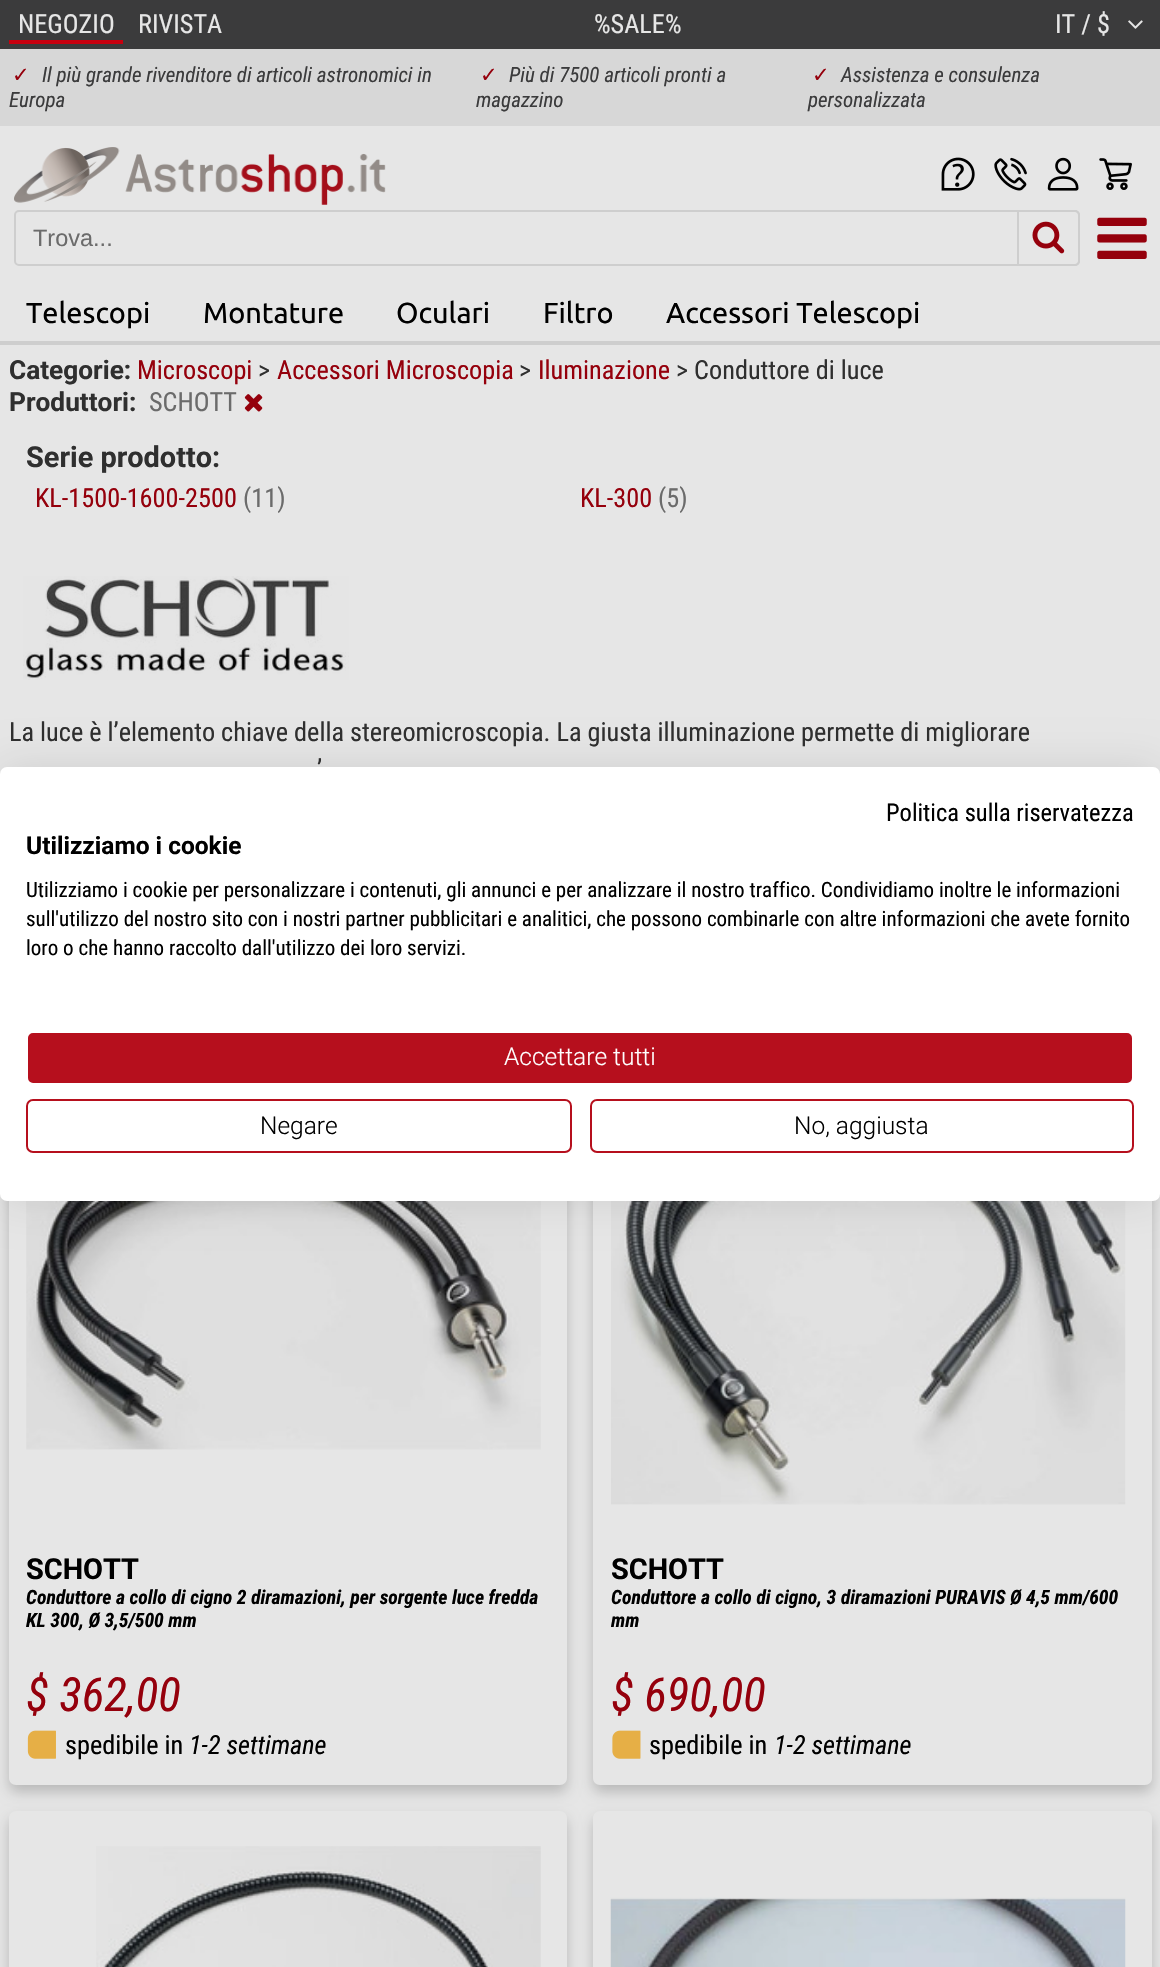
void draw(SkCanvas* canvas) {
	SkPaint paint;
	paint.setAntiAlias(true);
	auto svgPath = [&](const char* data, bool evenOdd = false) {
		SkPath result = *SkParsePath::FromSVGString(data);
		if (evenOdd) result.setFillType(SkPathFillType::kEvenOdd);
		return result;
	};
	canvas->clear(0xffe6e6e6);
	paint.setColor(0xff3b3b3c);
	canvas->drawRect(SkRect::MakeXYWH(0, 0, 1160, 49), paint);
	SkFont f1(fontMgr->matchFamilyStyle("Roboto Condensed", SkFontStyle::Normal()), 26.25);
	f1.setSubpixel(true);
	paint.setColor(0xffe6e6e6);
	canvas->drawString("NEGOZIO", 18, 33, f1, paint);
	paint.setColor(0xffc7000f);
	canvas->drawRect(SkRect::MakeXYWH(9, 40, 114, 4), paint);
	paint.setColor(0xffe6e6e6);
	canvas->drawString("RIVISTA", 138, 33, f1, paint);
	canvas->drawString("%SALE%", 594, 33, f1, paint);
	canvas->drawString("IT / $", 1055, 33, f1, paint);
	canvas->drawImageRect(SkImages::DeferredFromEncodedData(SkData::MakeFromFileName("img1.png")), SkRect::MakeXYWH(1128, 20, 15, 9), SkSamplingOptions());
	paint.setColor(0xffd7d7d7);
	canvas->drawRect(SkRect::MakeXYWH(0, 49, 1160, 77), paint);
	SkFont f2(fontMgr->matchFamilyStyle("DejaVu Sans", SkFontStyle::Normal()), 21);
	f2.setSubpixel(true);
	paint.setColor(0xff95000c);
	canvas->drawString("✓", 12, 82, f2, paint);
	SkFont f3(fontMgr->matchFamilyStyle("Roboto Condensed", SkFontStyle::Italic()), 21);
	f3.setSubpixel(true);
	paint.setColor(0xff3b3b3c);
	canvas->drawString("Il più grande rivenditore di articoli astronomici in", 42, 82, f3, paint);
	canvas->drawString("Europa", 9, 107, f3, paint);
	paint.setColor(0xff95000c);
	canvas->drawString("✓", 480, 82, f2, paint);
	paint.setColor(0xff3b3b3c);
	canvas->drawString("Più di 7500 articoli pronti a", 509, 82, f3, paint);
	canvas->drawString("magazzino", 476, 107, f3, paint);
	paint.setColor(0xff95000c);
	canvas->drawString("✓", 812, 82, f2, paint);
	paint.setColor(0xff3b3b3c);
	canvas->drawString("Assistenza e consulenza", 841, 82, f3, paint);
	canvas->drawString("personalizzata", 808, 107, f3, paint);
	canvas->drawImageRect(SkImages::DeferredFromEncodedData(SkData::MakeFromFileName("img2.png")), SkRect::MakeXYWH(14, 147, 372, 58), SkSamplingOptions());
	canvas->drawImageRect(SkImages::DeferredFromEncodedData(SkData::MakeFromFileName("img3.png")), SkRect::MakeXYWH(941, 157, 34, 34), SkSamplingOptions());
	canvas->drawImageRect(SkImages::DeferredFromEncodedData(SkData::MakeFromFileName("img4.png")), SkRect::MakeXYWH(994, 157, 33, 34), SkSamplingOptions());
	canvas->drawImageRect(SkImages::DeferredFromEncodedData(SkData::MakeFromFileName("img5.png")), SkRect::MakeXYWH(1047, 157, 32, 34), SkSamplingOptions());
	canvas->drawImageRect(SkImages::DeferredFromEncodedData(SkData::MakeFromFileName("img6.png")), SkRect::MakeXYWH(1099, 158, 33, 32), SkSamplingOptions());
	paint.setStroke(true);
	paint.setStrokeWidth(2);
	paint.setColor(0xffcecece);
	canvas->drawRoundRect(SkRect::MakeXYWH(15, 211, 1064, 54), 4, 4, paint);
	SkFont f4(fontMgr->matchFamilyStyle("Liberation Sans", SkFontStyle::Normal()), 23.5);
	f4.setSubpixel(true);
	paint.setStroke(false);
	paint.setColor(0xff6b6b6b);
	canvas->drawString("Trova...", 33, 246, f4, paint);
	paint.setColor(0xffe6e6e6);
	canvas->drawPath(svgPath("M1018 211H1075C1077 211 1079 213 1079 215V261C1079 263 1077 265 1075 265H1018Z"), paint);
	paint.setStroke(true);
	paint.setColor(0xffcecece);
	canvas->drawPath(svgPath("M1018 211H1075C1077 211 1079 213 1079 215V261C1079 263 1077 265 1075 265H1018Z"), paint);
	canvas->drawImageRect(SkImages::DeferredFromEncodedData(SkData::MakeFromFileName("img7.png")), SkRect::MakeXYWH(1032, 221, 33, 33), SkSamplingOptions());
	canvas->drawImageRect(SkImages::DeferredFromEncodedData(SkData::MakeFromFileName("img8.png")), SkRect::MakeXYWH(1097, 217, 50, 42), SkSamplingOptions());
	SkFont f5(fontMgr->matchFamilyStyle("Ubuntu", SkFontStyle::Normal()), 28.9);
	f5.setSubpixel(true);
	paint.setStroke(false);
	paint.setColor(0xff000000);
	canvas->drawString("Telescopi", 26, 323, f5, paint);
	canvas->drawString("Montature", 203, 323, f5, paint);
	canvas->drawString("Oculari", 396, 323, f5, paint);
	canvas->drawString("Filtro", 543, 323, f5, paint);
	canvas->drawString("Accessori Telescopi", 666, 323, f5, paint);
	paint.setColor(0xffcecece);
	canvas->drawRect(SkRect::MakeXYWH(0, 341, 1160, 4), paint);
	SkFont f6(fontMgr->matchFamilyStyle("Roboto", SkFontStyle::Bold()), 26.25);
	f6.setSubpixel(true);
	paint.setColor(0xff2f2f2f);
	canvas->drawString("Categorie:", 9, 379, f6, paint);
	paint.setColor(0xff95000c);
	canvas->drawString("Microscopi", 137, 379, f1, paint);
	paint.setColor(0xff2f2f2f);
	canvas->drawString(">", 258, 379, f1, paint);
	paint.setColor(0xff95000c);
	canvas->drawString("Accessori Microscopia", 277, 379, f1, paint);
	paint.setColor(0xff2f2f2f);
	canvas->drawString(">", 519, 379, f1, paint);
	paint.setColor(0xff95000c);
	canvas->drawString("Iluminazione", 538, 379, f1, paint);
	paint.setColor(0xff2f2f2f);
	canvas->drawString("> Conduttore di luce", 676, 379, f1, paint);
	canvas->drawString("Produttori:", 9, 411, f6, paint);
	paint.setColor(0xff6b6b6b);
	canvas->drawString("SCHOTT", 149, 411, f1, paint);
	canvas->drawImageRect(SkImages::DeferredFromEncodedData(SkData::MakeFromFileName("img9.png")), SkRect::MakeXYWH(244, 394, 19, 18), SkSamplingOptions());
	SkFont f7(fontMgr->matchFamilyStyle("Roboto", SkFontStyle::Bold()), 28.9);
	f7.setSubpixel(true);
	paint.setColor(0xff2f2f2f);
	canvas->drawString("Serie prodotto:", 26, 467, f7, paint);
	paint.setColor(0xff95000c);
	canvas->drawString("KL-1500-1600-2500", 35, 507, f1, paint);
	paint.setColor(0xff6b6b6b);
	canvas->drawString("(11)", 243, 507, f1, paint);
	paint.setColor(0xff95000c);
	canvas->drawString("KL-300", 580, 507, f1, paint);
	paint.setColor(0xff6b6b6b);
	canvas->drawString("(5)", 658, 507, f1, paint);
	canvas->drawImageRect(SkImages::DeferredFromEncodedData(SkData::MakeFromFileName("img10.png")), SkRect::MakeXYWH(23, 576, 326, 104), SkSamplingOptions());
	paint.setColor(0xff2f2f2f);
	canvas->drawString("La luce è l’elemento chiave della stereomicroscopia. La giusta illuminazione permette di migliorare", 9, 741, f1, paint);
	canvas->drawString("’", 317, 778, f1, paint);
	canvas->save();
	canvas->clipPath(svgPath("M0 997H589V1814H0ZM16 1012H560C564 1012 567 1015 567 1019V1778C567 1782 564 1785 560 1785H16C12 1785 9 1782 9 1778V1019C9 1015 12 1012 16 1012Z", true), true);
	paint.setColor(0x33000000);
	paint.setMaskFilter(SkMaskFilter::MakeBlur(kNormal_SkBlurStyle, 7));
	canvas->drawRoundRect(SkRect::MakeXYWH(9, 1019, 558, 773), 7, 7, paint);
	paint.setMaskFilter(nullptr);
	canvas->restore();
	canvas->drawImageRect(SkImages::DeferredFromEncodedData(SkData::MakeFromFileName("img11.png")), SkRect::MakeXYWH(26, 1201, 515, 249), SkSamplingOptions());
	paint.setColor(0xff000000);
	canvas->drawString("SCHOTT", 26, 1579, f7, paint);
	SkFont f8(fontMgr->matchFamilyStyle("Roboto Condensed", SkFontStyle::BoldItalic()), 19.7);
	f8.setSubpixel(true);
	canvas->drawString("Conduttore a collo di cigno 2 diramazioni, per sorgente luce fredda", 26, 1604, f8, paint);
	canvas->drawString("KL 300, Ø 3,5/500 mm", 26, 1627, f8, paint);
	SkFont f9(fontMgr->matchFamilyStyle("Roboto Condensed", SkFontStyle::Italic()), 47);
	f9.setSubpixel(true);
	paint.setColor(0xff95000c);
	canvas->drawString("$ 362,00", 26, 1711, f9, paint);
	canvas->drawImageRect(SkImages::DeferredFromEncodedData(SkData::MakeFromFileName("img12.png")), SkRect::MakeXYWH(27, 1730, 29, 29), SkSamplingOptions());
	paint.setColor(0xff000000);
	canvas->drawString("spedibile in", 65, 1754, f1, paint);
	SkFont f10(fontMgr->matchFamilyStyle("Roboto Condensed", SkFontStyle::Italic()), 26.25);
	f10.setSubpixel(true);
	canvas->drawString("1-2 settimane", 189, 1754, f10, paint);
	canvas->save();
	canvas->clipPath(svgPath("M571 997H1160V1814H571ZM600 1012H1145C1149 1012 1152 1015 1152 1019V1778C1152 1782 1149 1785 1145 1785H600C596 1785 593 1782 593 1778V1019C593 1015 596 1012 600 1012Z", true), true);
	paint.setColor(0x33000000);
	paint.setMaskFilter(SkMaskFilter::MakeBlur(kNormal_SkBlurStyle, 7));
	canvas->drawRoundRect(SkRect::MakeXYWH(593, 1019, 559, 773), 7, 7, paint);
	paint.setMaskFilter(nullptr);
	canvas->restore();
	canvas->drawImageRect(SkImages::DeferredFromEncodedData(SkData::MakeFromFileName("img13.png")), SkRect::MakeXYWH(611, 1201, 515, 304), SkSamplingOptions());
	paint.setColor(0xff000000);
	canvas->drawString("SCHOTT", 611, 1579, f7, paint);
	canvas->drawString("Conduttore a collo di cigno, 3 diramazioni PURAVIS Ø 4,5 mm/600", 611, 1604, f8, paint);
	canvas->drawString("mm", 611, 1627, f8, paint);
	paint.setColor(0xff95000c);
	canvas->drawString("$ 690,00", 611, 1711, f9, paint);
	canvas->drawImageRect(SkImages::DeferredFromEncodedData(SkData::MakeFromFileName("img14.png")), SkRect::MakeXYWH(612, 1730, 29, 29), SkSamplingOptions());
	paint.setColor(0xff000000);
	canvas->drawString("spedibile in", 649, 1754, f1, paint);
	canvas->drawString("1-2 settimane", 774, 1754, f10, paint);
	canvas->save();
	canvas->clipPath(svgPath("M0 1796H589V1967H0ZM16 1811H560C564 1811 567 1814 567 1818V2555C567 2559 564 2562 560 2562H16C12 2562 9 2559 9 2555V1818C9 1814 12 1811 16 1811Z", true), true);
	paint.setColor(0x33000000);
	paint.setMaskFilter(SkMaskFilter::MakeBlur(kNormal_SkBlurStyle, 7));
	canvas->drawRoundRect(SkRect::MakeXYWH(9, 1818, 558, 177), 7, 7, paint);
	paint.setMaskFilter(nullptr);
	canvas->restore();
	canvas->drawImageRect(SkImages::DeferredFromEncodedData(SkData::MakeFromFileName("img15.png")), SkRect::MakeXYWH(96, 1846, 445, 121), SkSamplingOptions());
	canvas->save();
	canvas->clipPath(svgPath("M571 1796H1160V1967H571ZM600 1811H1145C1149 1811 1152 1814 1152 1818V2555C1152 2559 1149 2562 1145 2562H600C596 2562 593 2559 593 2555V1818C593 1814 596 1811 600 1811Z", true), true);
	paint.setMaskFilter(SkMaskFilter::MakeBlur(kNormal_SkBlurStyle, 7));
	canvas->drawRoundRect(SkRect::MakeXYWH(593, 1818, 559, 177), 7, 7, paint);
	paint.setMaskFilter(nullptr);
	canvas->restore();
	canvas->drawImageRect(SkImages::DeferredFromEncodedData(SkData::MakeFromFileName("img16.png")), SkRect::MakeXYWH(610, 1897, 516, 70), SkSamplingOptions());
	paint.setColor(0x1a000000);
	paint.setMaskFilter(SkMaskFilter::MakeBlur(kNormal_SkBlurStyle, 21));
	canvas->drawRoundRect(SkRect::MakeXYWH(0, 767, 1160, 434), 7, 7, paint);
	paint.setMaskFilter(nullptr);
	paint.setColor(0xffffffff);
	canvas->drawRoundRect(SkRect::MakeXYWH(0, 767, 1160, 434), 7, 7, paint);
	SkFont f11(fontMgr->matchFamilyStyle("Roboto Condensed", SkFontStyle::Normal()), 24.5);
	f11.setSubpixel(true);
	paint.setColor(0xff000000);
	canvas->drawString("Politica sulla riservatezza", 886, 821, f11, paint);
	SkFont f12(fontMgr->matchFamilyStyle("Roboto", SkFontStyle::Bold()), 24.5);
	f12.setSubpixel(true);
	canvas->drawString("Utilizziamo i cookie", 26, 854, f12, paint);
	SkFont f13(fontMgr->matchFamilyStyle("Roboto Condensed", SkFontStyle::Normal()), 21);
	f13.setSubpixel(true);
	canvas->drawString("Utilizziamo i cookie per personalizzare i contenuti, gli annunci e per analizzare il nostro traffico. Condividiamo inoltre le informazioni", 26, 897, f13, paint);
	canvas->drawString("sull'utilizzo del nostro sito con i nostri partner pubblicitari e analitici, che possono combinarle con altre informazioni che avete fornito", 26, 926, f13, paint);
	canvas->drawString("loro o che hanno raccolto dall'utilizzo dei loro servizi.", 26, 955, f13, paint);
	paint.setColor(0xffb60f1d);
	canvas->drawRoundRect(SkRect::MakeXYWH(27, 1032, 1106, 52), 6, 6, paint);
	paint.setStroke(true);
	paint.setColor(0xffffffff);
	canvas->drawRoundRect(SkRect::MakeXYWH(27, 1032, 1106, 52), 6, 6, paint);
	SkFont f14(fontMgr->matchFamilyStyle("Roboto", SkFontStyle(300, SkFontStyle::kNormal_Width, SkFontStyle::kUpright_Slant)), 24.5);
	f14.setSubpixel(true);
	paint.setStroke(false);
	canvas->drawString("Accettare tutti", 504, 1065, f14, paint);
	paint.setStroke(true);
	paint.setColor(0xffb60f1d);
	canvas->drawRoundRect(SkRect::MakeXYWH(27, 1100, 544, 52), 6, 6, paint);
	paint.setStroke(false);
	paint.setColor(0xff000000);
	canvas->drawString("Negare", 260, 1134, f14, paint);
	paint.setStroke(true);
	paint.setColor(0xffb60f1d);
	canvas->drawRoundRect(SkRect::MakeXYWH(591, 1100, 542, 52), 6, 6, paint);
	paint.setStroke(false);
	paint.setColor(0xff000000);
	canvas->drawString("No, aggiusta", 794, 1134, f14, paint);
}
